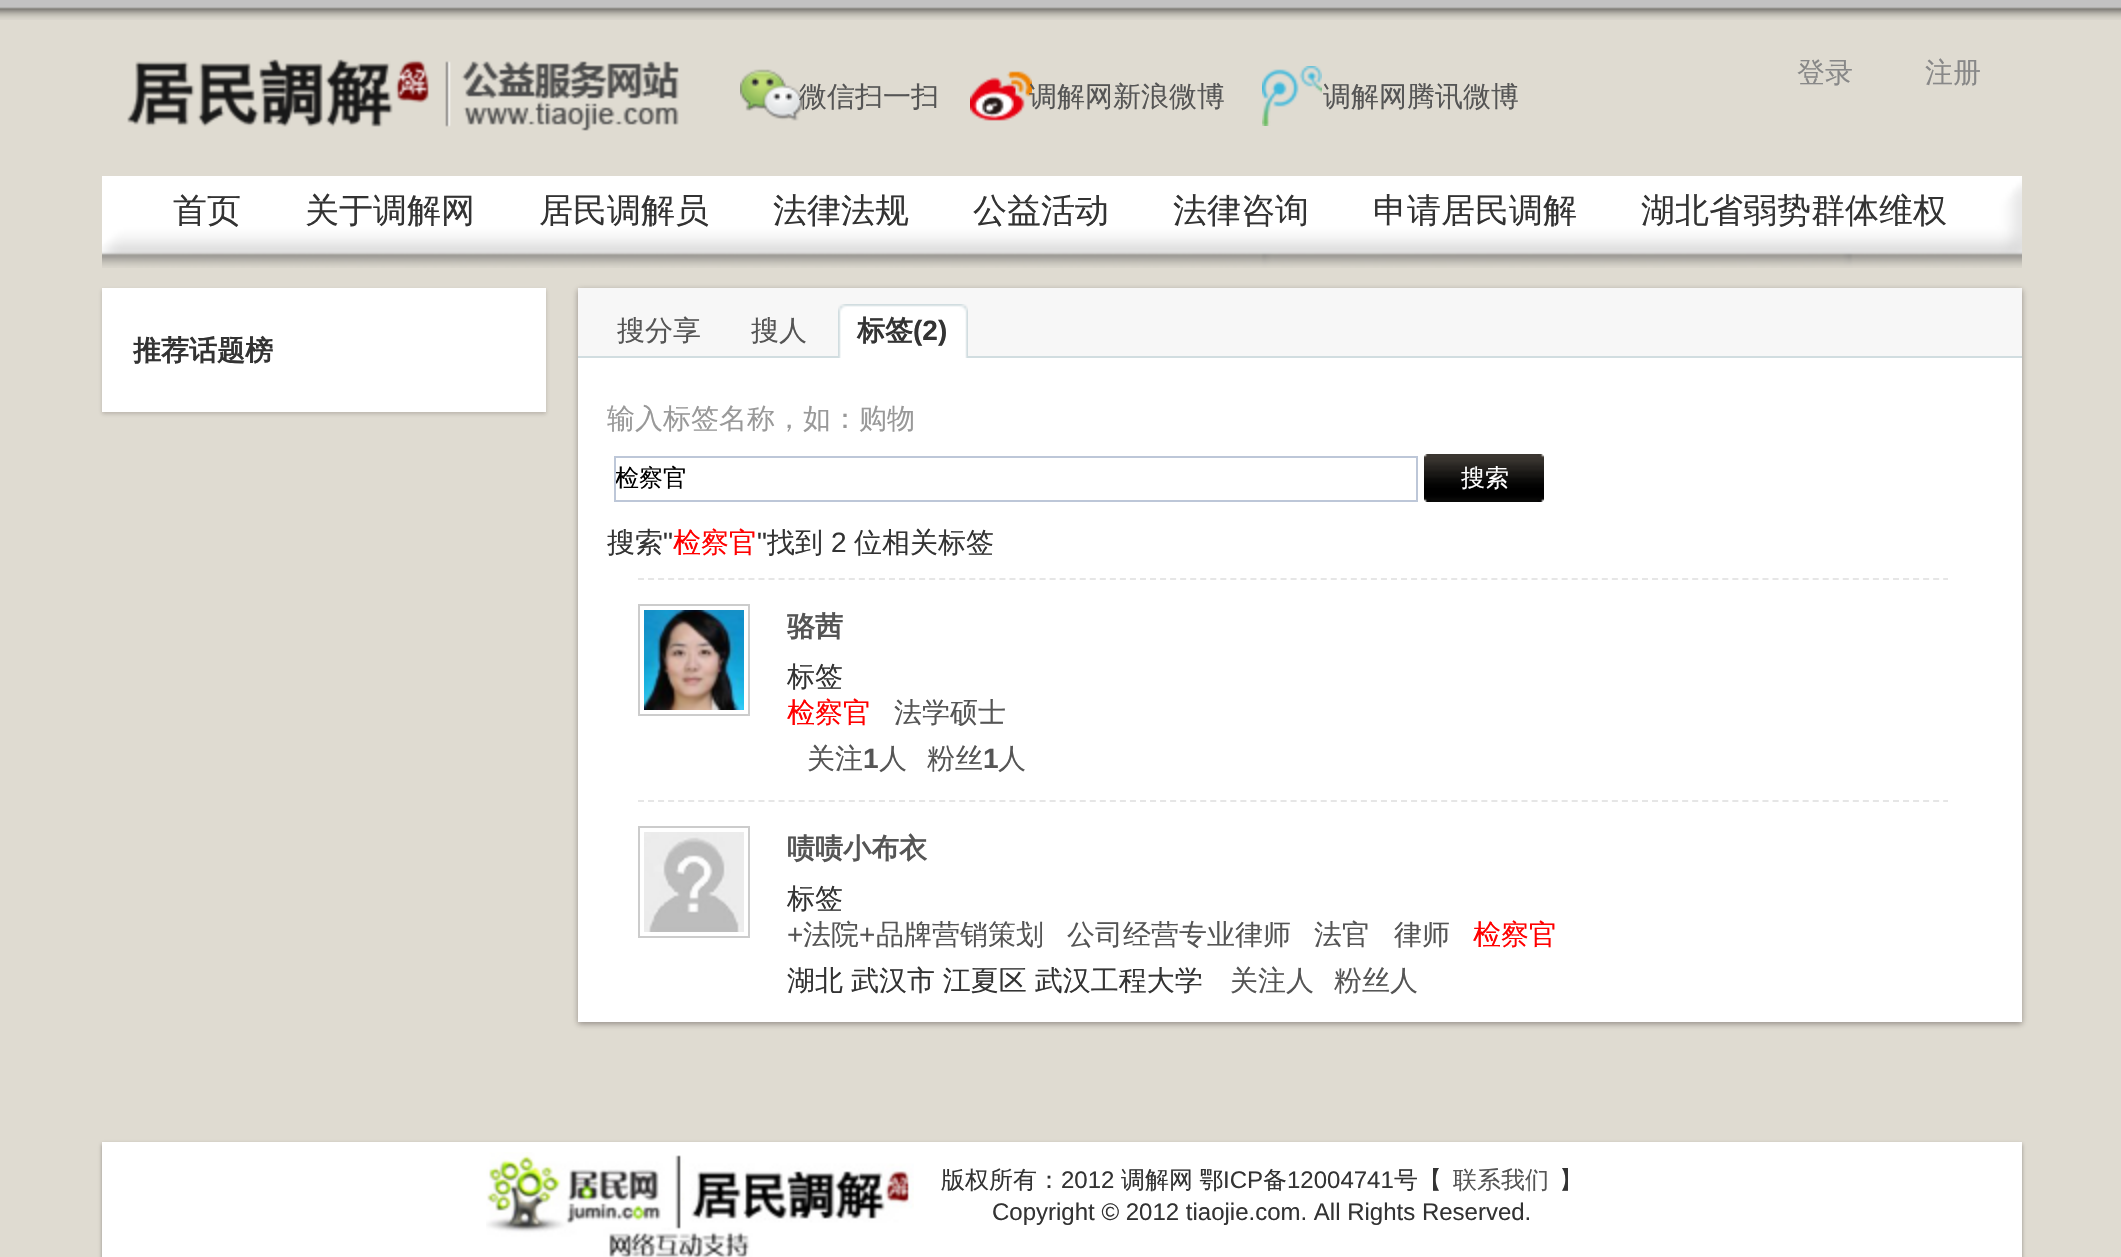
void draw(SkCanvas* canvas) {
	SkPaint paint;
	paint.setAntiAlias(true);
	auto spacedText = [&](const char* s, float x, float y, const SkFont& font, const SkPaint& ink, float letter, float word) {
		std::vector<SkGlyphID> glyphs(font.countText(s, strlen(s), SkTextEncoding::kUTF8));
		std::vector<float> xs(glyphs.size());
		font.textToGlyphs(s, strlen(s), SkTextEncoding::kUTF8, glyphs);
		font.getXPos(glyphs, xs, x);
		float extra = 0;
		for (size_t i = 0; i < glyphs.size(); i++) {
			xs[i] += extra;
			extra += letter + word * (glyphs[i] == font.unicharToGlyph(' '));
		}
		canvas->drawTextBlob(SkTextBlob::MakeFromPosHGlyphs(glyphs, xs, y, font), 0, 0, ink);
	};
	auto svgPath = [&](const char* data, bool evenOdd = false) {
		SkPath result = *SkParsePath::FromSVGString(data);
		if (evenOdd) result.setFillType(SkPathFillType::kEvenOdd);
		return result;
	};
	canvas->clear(0xffdfdbd1);
	canvas->drawImageRect(SkImages::DeferredFromEncodedData(SkData::MakeFromFileName("img1.png")), SkRect::MakeXYWH(0, 0, 2121, 20), SkSamplingOptions());
	canvas->drawImageRect(SkImages::DeferredFromEncodedData(SkData::MakeFromFileName("img2.png")), SkRect::MakeXYWH(127, 59, 302, 68), SkSamplingOptions());
	canvas->drawImageRect(SkImages::DeferredFromEncodedData(SkData::MakeFromFileName("img3.png")), SkRect::MakeXYWH(445, 61, 234, 70), SkSamplingOptions());
	canvas->drawImageRect(SkImages::DeferredFromEncodedData(SkData::MakeFromFileName("img4.png")), SkRect::MakeXYWH(740, 69, 62, 52), SkSamplingOptions());
	SkFont f1(fontMgr->matchFamilyStyle("WenQuanYi Zen Hei", SkFontStyle(500, SkFontStyle::kNormal_Width, SkFontStyle::kUpright_Slant)), 28);
	f1.setSubpixel(true);
	paint.setColor(0xff555555);
	canvas->drawString("微信扫一扫", 799, 106, f1, paint);
	canvas->drawImageRect(SkImages::DeferredFromEncodedData(SkData::MakeFromFileName("img5.png")), SkRect::MakeXYWH(970, 71, 62, 50), SkSamplingOptions());
	canvas->drawString("调解网新浪微博", 1029, 106, f1, paint);
	canvas->drawImageRect(SkImages::DeferredFromEncodedData(SkData::MakeFromFileName("img6.png")), SkRect::MakeXYWH(1262, 66, 60, 60), SkSamplingOptions());
	canvas->drawString("调解网腾讯微博", 1323, 106, f1, paint);
	paint.setColor(0xff888888);
	canvas->drawString("登录", 1797, 82, f1, paint);
	canvas->drawString("注册", 1925, 82, f1, paint);
	canvas->drawImageRect(SkImages::DeferredFromEncodedData(SkData::MakeFromFileName("img7.png")), SkRect::MakeXYWH(102, 176, 1920, 92), SkSamplingOptions());
	SkFont f2(fontMgr->matchFamilyStyle("WenQuanYi Zen Hei", SkFontStyle(500, SkFontStyle::kNormal_Width, SkFontStyle::kUpright_Slant)), 34);
	f2.setSubpixel(true);
	paint.setColor(0xff333333);
	canvas->drawString("首页", 173, 222, f2, paint);
	canvas->drawString("关于调解网", 305, 222, f2, paint);
	canvas->drawString("居民调解员", 539, 222, f2, paint);
	canvas->drawString("法律法规", 773, 222, f2, paint);
	canvas->drawString("公益活动", 973, 222, f2, paint);
	canvas->drawString("法律咨询", 1173, 222, f2, paint);
	canvas->drawString("申请居民调解", 1373, 222, f2, paint);
	canvas->drawString("湖北省弱势群体维权", 1641, 222, f2, paint);
	paint.setColor(0x33221919);
	paint.setMaskFilter(SkMaskFilter::MakeBlur(kNormal_SkBlurStyle, 2));
	canvas->drawRect(SkRect::MakeXYWH(102, 290, 444, 124), paint);
	paint.setMaskFilter(nullptr);
	paint.setColor(0xffffffff);
	canvas->drawRect(SkRect::MakeXYWH(102, 288, 444, 124), paint);
	SkFont f3(fontMgr->matchFamilyStyle("WenQuanYi Zen Hei", SkFontStyle::Bold()), 28);
	f3.setSubpixel(true);
	paint.setColor(0xff333333);
	canvas->drawString("推荐话题榜", 133, 360, f3, paint);
	paint.setColor(0x66221919);
	paint.setMaskFilter(SkMaskFilter::MakeBlur(kNormal_SkBlurStyle, 3));
	canvas->drawRect(SkRect::MakeXYWH(578, 290, 1444, 734), paint);
	paint.setMaskFilter(nullptr);
	paint.setColor(0xffffffff);
	canvas->drawRect(SkRect::MakeXYWH(578, 358, 1444, 664), paint);
	paint.setColor(0xfff7f7f7);
	canvas->drawRect(SkRect::MakeXYWH(578, 288, 1444, 68), paint);
	paint.setColor(0xffd1dde0);
	canvas->drawRect(SkRect::MakeXYWH(578, 356, 1444, 2), paint);
	paint.setColor(0xff555555);
	canvas->drawString("搜分享", 617, 340, f1, paint);
	canvas->drawString("搜人", 751, 340, f1, paint);
	canvas->drawImageRect(SkImages::DeferredFromEncodedData(SkData::MakeFromFileName("img8.png")), SkRect::MakeXYWH(838, 304, 20, 54), SkSamplingOptions());
	canvas->drawImageRect(SkImages::DeferredFromEncodedData(SkData::MakeFromFileName("img9.png")), SkRect::MakeXYWH(858, 304, 110, 54), SkSamplingOptions());
	paint.setColor(0xff333333);
	canvas->drawString("标签", 857, 340, f3, paint);
	SkFont f4(fontMgr->matchFamilyStyle("Liberation Sans", SkFontStyle::Bold()), 28);
	f4.setSubpixel(true);
	canvas->drawString("(2)", 913, 340, f4, paint);
	paint.setColor(0xff999999);
	canvas->drawString("输入标签名称，如：购物", 607, 428, f1, paint);
	paint.setStroke(true);
	paint.setStrokeWidth(2);
	paint.setColor(0xffbdc7d8);
	canvas->drawRect(SkRect::MakeXYWH(615, 457, 802, 44), paint);
	canvas->save();
	canvas->clipRect(SkRect::MakeXYWH(616, 462, 800, 34));
	SkFont f5(fontMgr->matchFamilyStyle("WenQuanYi Zen Hei", SkFontStyle(500, SkFontStyle::kNormal_Width, SkFontStyle::kUpright_Slant)), 24);
	f5.setSubpixel(true);
	paint.setStroke(false);
	paint.setColor(0xff000000);
	canvas->drawString("检察官", 615, 486, f5, paint);
	canvas->restore();
	canvas->drawImageRect(SkImages::DeferredFromEncodedData(SkData::MakeFromFileName("img10.png")), SkRect::MakeXYWH(1424, 454, 120, 48), SkSamplingOptions());
	paint.setColor(0xffffffff);
	canvas->drawString("搜索", 1461, 486, f5, paint);
	paint.setColor(0xff333333);
	canvas->drawString("搜索", 607, 552, f1, paint);
	SkFont f6(fontMgr->matchFamilyStyle("Liberation Sans", SkFontStyle::Normal()), 28);
	f6.setSubpixel(true);
	canvas->drawString("\"", 663, 552, f6, paint);
	paint.setColor(0xffff0000);
	canvas->drawString("检察官", 673, 552, f1, paint);
	paint.setColor(0xff333333);
	canvas->drawString("\"", 757, 552, f6, paint);
	canvas->drawString("找到", 767, 552, f1, paint);
	canvas->drawString("2", 831, 552, f6, paint);
	canvas->drawString("位相关标签", 854, 552, f1, paint);
	paint.setStroke(true);
	paint.setColor(0xffe6e6e6);
	paint.setPathEffect(SkDashPathEffect::Make({{6, 4.04f}}, 0));
	canvas->drawPath(svgPath("M638 579H1948"), paint);
	paint.setPathEffect(nullptr);
	paint.setColor(0xffcccccc);
	canvas->drawRect(SkRect::MakeXYWH(639, 605, 110, 110), paint);
	canvas->drawImageRect(SkImages::DeferredFromEncodedData(SkData::MakeFromFileName("img11.png")), SkRect::MakeXYWH(644, 610, 100, 100), SkSamplingOptions());
	paint.setStroke(false);
	paint.setColor(0xff555555);
	canvas->drawString("骆茜", 787, 636, f3, paint);
	paint.setColor(0xff333333);
	canvas->drawString("标签", 787, 686, f1, paint);
	paint.setColor(0xffff0000);
	canvas->drawString("检察官", 787, 722, f1, paint);
	paint.setColor(0xff555555);
	canvas->drawString("法学硕士", 894, 722, f1, paint);
	canvas->drawString("关注", 807, 768, f1, paint);
	canvas->drawString("1", 863, 768, f4, paint);
	canvas->drawString("人", 879, 768, f1, paint);
	canvas->drawString("粉丝", 927, 768, f1, paint);
	canvas->drawString("1", 983, 768, f4, paint);
	canvas->drawString("人", 998, 768, f1, paint);
	paint.setStroke(true);
	paint.setColor(0xffe6e6e6);
	paint.setPathEffect(SkDashPathEffect::Make({{6, 4.04f}}, 0));
	canvas->drawPath(svgPath("M638 801H1948"), paint);
	paint.setPathEffect(nullptr);
	paint.setColor(0xffcccccc);
	canvas->drawRect(SkRect::MakeXYWH(639, 827, 110, 110), paint);
	canvas->drawImageRect(SkImages::DeferredFromEncodedData(SkData::MakeFromFileName("img12.png")), SkRect::MakeXYWH(644, 832, 100, 100), SkSamplingOptions());
	paint.setStroke(false);
	paint.setColor(0xff555555);
	canvas->drawString("啧啧小布衣", 787, 858, f3, paint);
	paint.setColor(0xff333333);
	canvas->drawString("标签", 787, 908, f1, paint);
	paint.setColor(0xff555555);
	canvas->drawString("+", 787, 944, f6, paint);
	canvas->drawString("法院", 803, 944, f1, paint);
	canvas->drawString("+", 859, 944, f6, paint);
	canvas->drawString("品牌营销策划", 876, 944, f1, paint);
	canvas->drawString("公司经营专业律师", 1067, 944, f1, paint);
	canvas->drawString("法官", 1314, 944, f1, paint);
	canvas->drawString("律师", 1394, 944, f1, paint);
	paint.setColor(0xffff0000);
	canvas->drawString("检察官", 1473, 944, f1, paint);
	paint.setColor(0xff333333);
	spacedText("湖北 武汉市 江夏区 武汉工程大学", 787, 990, f1, paint, 0, -0.5);
	paint.setColor(0xff555555);
	canvas->drawString("关注人", 1230, 990, f1, paint);
	canvas->drawString("粉丝人", 1334, 990, f1, paint);
	paint.setColor(0x66221919);
	paint.setMaskFilter(SkMaskFilter::MakeBlur(kNormal_SkBlurStyle, 2));
	canvas->drawRect(SkRect::MakeXYWH(102, 1144, 1920, 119), paint);
	paint.setMaskFilter(nullptr);
	paint.setColor(0xffffffff);
	canvas->drawRect(SkRect::MakeXYWH(102, 1142, 1920, 115), paint);
	canvas->drawImageRect(SkImages::DeferredFromEncodedData(SkData::MakeFromFileName("img13.png")), SkRect::MakeXYWH(486, 1152, 428, 105), SkSamplingOptions());
	paint.setColor(0xff333333);
	canvas->drawString("版权所有：", 941, 1188, f5, paint);
	SkFont f7(fontMgr->matchFamilyStyle("Liberation Sans", SkFontStyle::Normal()), 24);
	f7.setSubpixel(true);
	canvas->drawString("2012", 1061, 1188, f7, paint);
	spacedText("调解网 鄂", 1121, 1188, f5, paint, 0, -1);
	canvas->drawString("ICP", 1223, 1188, f7, paint);
	canvas->drawString("备", 1263, 1188, f5, paint);
	canvas->drawString("12004741", 1287, 1188, f7, paint);
	canvas->drawString("号【", 1394, 1188, f5, paint);
	paint.setColor(0xff555555);
	canvas->drawString("联系我们", 1453, 1188, f5, paint);
	paint.setColor(0xff333333);
	canvas->drawString("】", 1559, 1188, f5, paint);
	canvas->drawString("Copyright © 2012 tiaojie.com. All Rights Reserved.", 992, 1220, f7, paint);
}
